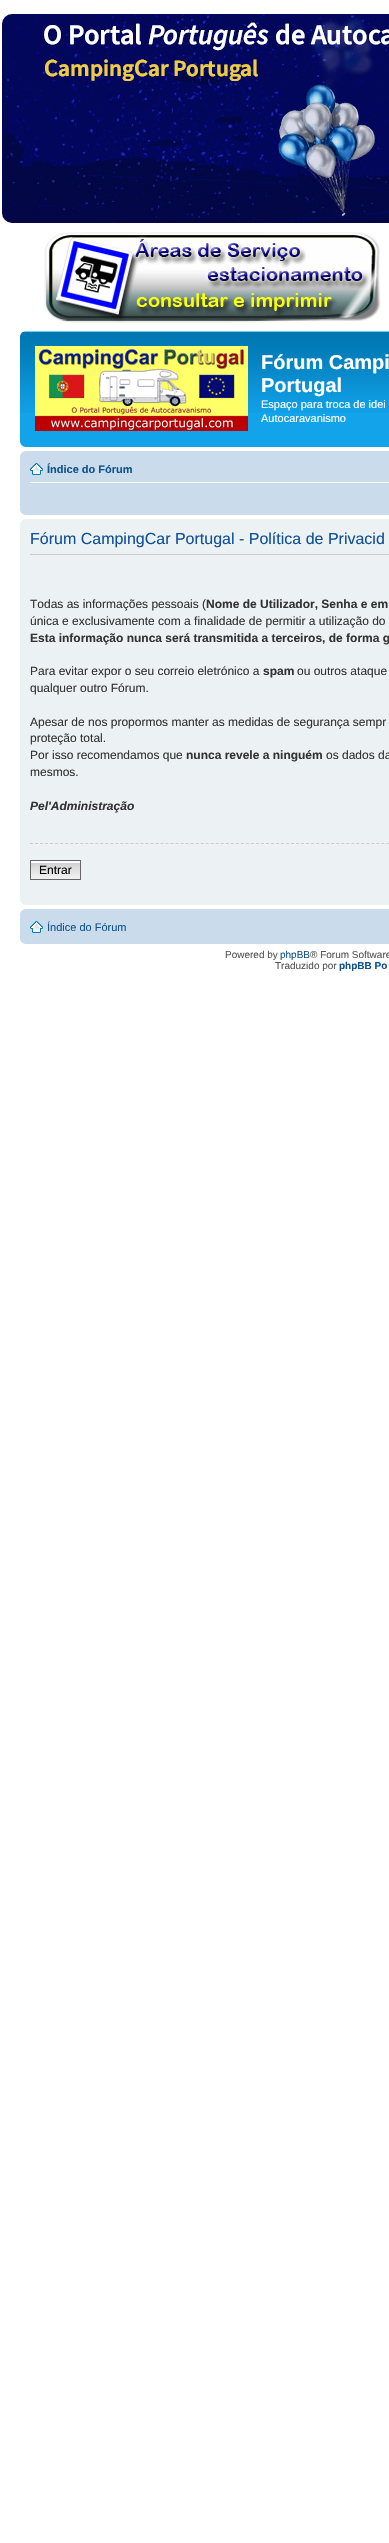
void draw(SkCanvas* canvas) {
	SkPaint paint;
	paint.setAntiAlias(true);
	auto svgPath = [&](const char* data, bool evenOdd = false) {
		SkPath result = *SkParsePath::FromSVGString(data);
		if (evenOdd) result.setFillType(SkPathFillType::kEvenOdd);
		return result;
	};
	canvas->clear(0xffffffff);
	canvas->drawImageRect(SkImages::DeferredFromEncodedData(SkData::MakeFromFileName("img1.png")), SkRect::MakeXYWH(2, 14, 387, 209), SkSamplingOptions());
	canvas->drawImageRect(SkImages::DeferredFromEncodedData(SkData::MakeFromFileName("img2.png")), SkRect::MakeXYWH(44, 232, 337, 91), SkSamplingOptions());
	paint.setColor(0xff12a3eb);
	canvas->drawRect(SkRect::MakeXYWH(20, 413, 369, 34), paint);
	canvas->drawImageRect(SkImages::DeferredFromEncodedData(SkData::MakeFromFileName("img3.png")), SkRect::MakeXYWH(20, 331, 369, 82), SkSamplingOptions());
	canvas->drawImageRect(SkImages::DeferredFromEncodedData(SkData::MakeFromFileName("img4.png")), SkRect::MakeXYWH(20, 331, 5, 5), SkSamplingOptions());
	canvas->drawImageRect(SkImages::DeferredFromEncodedData(SkData::MakeFromFileName("img5.png")), SkRect::MakeXYWH(35, 346, 213, 85), SkSamplingOptions());
	SkFont f1(fontMgr->matchFamilyStyle("Liberation Sans", SkFontStyle::Bold()), 20);
	f1.setSubpixel(true);
	paint.setColor(0xffffffff);
	canvas->drawString("Fórum Campi", 261, 369, f1, paint);
	canvas->drawString("Portugal", 261, 392, f1, paint);
	SkFont f2(fontMgr->matchFamilyStyle("Liberation Sans", SkFontStyle::Normal()), 11);
	f2.setSubpixel(true);
	canvas->drawString("Espaço para troca de idei", 261, 408, f2, paint);
	canvas->drawString("Autocaravanismo", 261, 422, f2, paint);
	canvas->drawImageRect(SkImages::DeferredFromEncodedData(SkData::MakeFromFileName("img6.png")), SkRect::MakeXYWH(20, 442, 5, 5), SkSamplingOptions());
	paint.setColor(0xffcadceb);
	canvas->drawRect(SkRect::MakeXYWH(20, 451, 369, 64), paint);
	canvas->drawImageRect(SkImages::DeferredFromEncodedData(SkData::MakeFromFileName("img7.png")), SkRect::MakeXYWH(20, 451, 5, 5), SkSamplingOptions());
	paint.setColor(0xffffffff);
	canvas->drawRect(SkRect::MakeXYWH(30, 482, 359, 1), paint);
	canvas->drawImageRect(SkImages::DeferredFromEncodedData(SkData::MakeFromFileName("img8.png")), SkRect::MakeXYWH(30, 463, 13, 12), SkSamplingOptions());
	SkFont f3(fontMgr->matchFamilyStyle("Liberation Sans", SkFontStyle::Bold()), 11);
	f3.setSubpixel(true);
	paint.setColor(0xff105289);
	canvas->drawString("Índice do Fórum", 47, 473, f3, paint);
	canvas->drawImageRect(SkImages::DeferredFromEncodedData(SkData::MakeFromFileName("img9.png")), SkRect::MakeXYWH(20, 510, 5, 5), SkSamplingOptions());
	paint.setColor(0xffecf1f3);
	canvas->drawRect(SkRect::MakeXYWH(20, 519, 369, 386), paint);
	canvas->drawImageRect(SkImages::DeferredFromEncodedData(SkData::MakeFromFileName("img10.png")), SkRect::MakeXYWH(20, 519, 5, 5), SkSamplingOptions());
	paint.setColor(0xffcccccc);
	canvas->drawRect(SkRect::MakeXYWH(30, 554, 359, 1), paint);
	SkFont f4(fontMgr->matchFamilyStyle("Liberation Sans", SkFontStyle::Normal()), 16);
	f4.setSubpixel(true);
	paint.setColor(0xff115098);
	canvas->drawString("Fórum CampingCar Portugal - Política de Privacid", 30, 544, f4, paint);
	SkFont f5(fontMgr->matchFamilyStyle("Liberation Sans", SkFontStyle::Normal()), 12);
	f5.setSubpixel(true);
	paint.setColor(0xff333333);
	canvas->drawString("Todas as informações pessoais (", 30, 608, f5, paint);
	SkFont f6(fontMgr->matchFamilyStyle("Liberation Sans", SkFontStyle::Bold()), 12);
	f6.setSubpixel(true);
	canvas->drawString("Nome de Utilizador, Senha e em", 206, 608, f6, paint);
	canvas->drawString("única e exclusivamente com a finalidade de permitir a utilização do", 30, 625, f5, paint);
	canvas->drawString("Esta informação nunca será transmitida a terceiros, de forma g", 30, 642, f6, paint);
	canvas->drawString("Para evitar expor o seu correio eletrónico a", 30, 675, f5, paint);
	canvas->drawString("spam", 263, 675, f6, paint);
	canvas->drawString("ou outros ataque", 297, 675, f5, paint);
	canvas->drawString("qualquer outro Fórum.", 30, 692, f5, paint);
	canvas->drawString("Apesar de nos propormos manter as medidas de segurança sempr", 30, 726, f5, paint);
	canvas->drawString("proteção total.", 30, 742, f5, paint);
	canvas->drawString("Por isso recomendamos que", 30, 759, f5, paint);
	canvas->drawString("nunca revele a ninguém", 186, 759, f6, paint);
	canvas->drawString("os dados da", 326, 759, f5, paint);
	canvas->drawString("mesmos.", 30, 776, f5, paint);
	SkFont f7(fontMgr->matchFamilyStyle("Liberation Sans", SkFontStyle::BoldItalic()), 12);
	f7.setSubpixel(true);
	canvas->drawString("Pel'Administração", 30, 810, f7, paint);
	paint.setStroke(true);
	paint.setStrokeWidth(1);
	paint.setColor(0xffcccccc);
	paint.setPathEffect(SkDashPathEffect::Make({{3, 2.02f}}, 0));
	canvas->drawPath(svgPath("M30 843.5H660"), paint);
	paint.setPathEffect(nullptr);
	canvas->drawImageRect(SkImages::DeferredFromEncodedData(SkData::MakeFromFileName("img11.png")), SkRect::MakeXYWH(31, 862, 49, 17), SkSamplingOptions());
	paint.setStroke(false);
	paint.setColor(0xfffafafa);
	canvas->drawRect(SkRect::MakeXYWH(31, 861, 49, 1), paint);
	paint.setStroke(true);
	paint.setColor(0xff666666);
	canvas->drawRect(SkRect::MakeXYWH(30.5, 860.5, 50, 19), paint);
	paint.setStroke(false);
	paint.setColor(0xff000000);
	canvas->drawString("Entrar", 39, 874, f5, paint);
	canvas->drawImageRect(SkImages::DeferredFromEncodedData(SkData::MakeFromFileName("img12.png")), SkRect::MakeXYWH(20, 900, 5, 5), SkSamplingOptions());
	paint.setColor(0xffcadceb);
	canvas->drawRect(SkRect::MakeXYWH(20, 909, 369, 35), paint);
	canvas->drawImageRect(SkImages::DeferredFromEncodedData(SkData::MakeFromFileName("img7.png")), SkRect::MakeXYWH(20, 909, 5, 5), SkSamplingOptions());
	canvas->drawImageRect(SkImages::DeferredFromEncodedData(SkData::MakeFromFileName("img8.png")), SkRect::MakeXYWH(30, 921, 13, 12), SkSamplingOptions());
	paint.setColor(0xff105289);
	canvas->drawString("Índice do Fórum", 47, 931, f2, paint);
	canvas->drawImageRect(SkImages::DeferredFromEncodedData(SkData::MakeFromFileName("img9.png")), SkRect::MakeXYWH(20, 939, 5, 5), SkSamplingOptions());
	SkFont f8(fontMgr->matchFamilyStyle("Liberation Sans", SkFontStyle::Normal()), 10);
	f8.setSubpixel(true);
	paint.setColor(0xff555555);
	canvas->drawString("Powered by", 225, 958, f8, paint);
	paint.setColor(0xff105289);
	canvas->drawString("phpBB", 280, 958, f8, paint);
	paint.setColor(0xff555555);
	canvas->drawString("® Forum Software", 310, 958, f8, paint);
	canvas->drawString("Traduzido por", 275, 969, f8, paint);
	SkFont f9(fontMgr->matchFamilyStyle("Liberation Sans", SkFontStyle::Bold()), 10);
	f9.setSubpixel(true);
	paint.setColor(0xff105289);
	canvas->drawString("phpBB Po", 339, 969, f9, paint);
}
